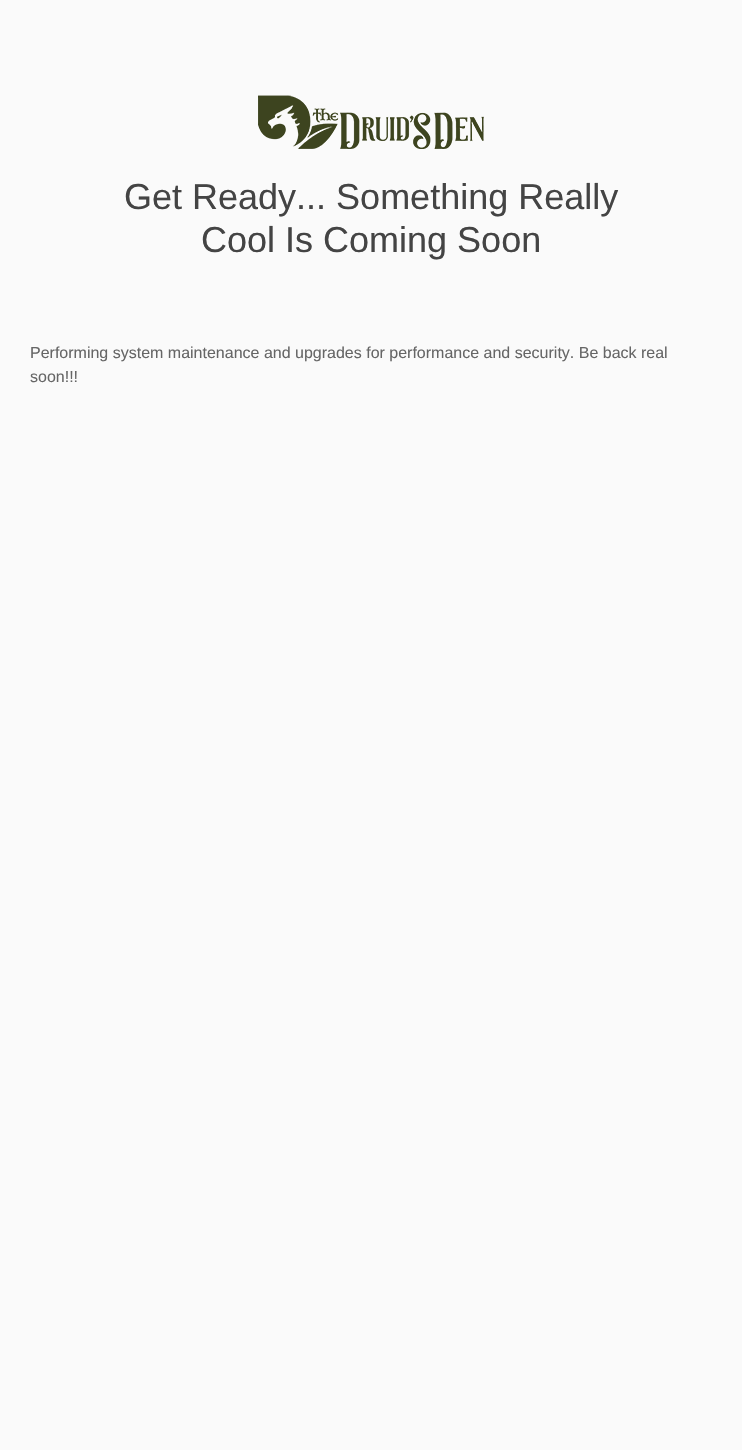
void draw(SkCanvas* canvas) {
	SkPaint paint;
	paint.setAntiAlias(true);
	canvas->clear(0xfffafafa);
	canvas->drawImageRect(SkImages::DeferredFromEncodedData(SkData::MakeFromFileName("img1.png")), SkRect::MakeXYWH(258, 95, 226, 54), SkSamplingOptions());
	SkFont f1(fontMgr->matchFamilyStyle("Liberation Sans", SkFontStyle::Normal()), 36);
	f1.setSubpixel(true);
	paint.setColor(0xff444444);
	canvas->drawString("Get Ready... Something Really", 124, 209, f1, paint);
	canvas->drawString("Cool Is Coming Soon", 201, 252, f1, paint);
	SkFont f2(fontMgr->matchFamilyStyle("Liberation Sans", SkFontStyle::Normal()), 16);
	f2.setSubpixel(true);
	paint.setColor(0xff666666);
	canvas->drawString("Performing system maintenance and upgrades for performance and security. Be back real", 30, 358, f2, paint);
	canvas->drawString("soon!!!", 30, 382, f2, paint);
}
